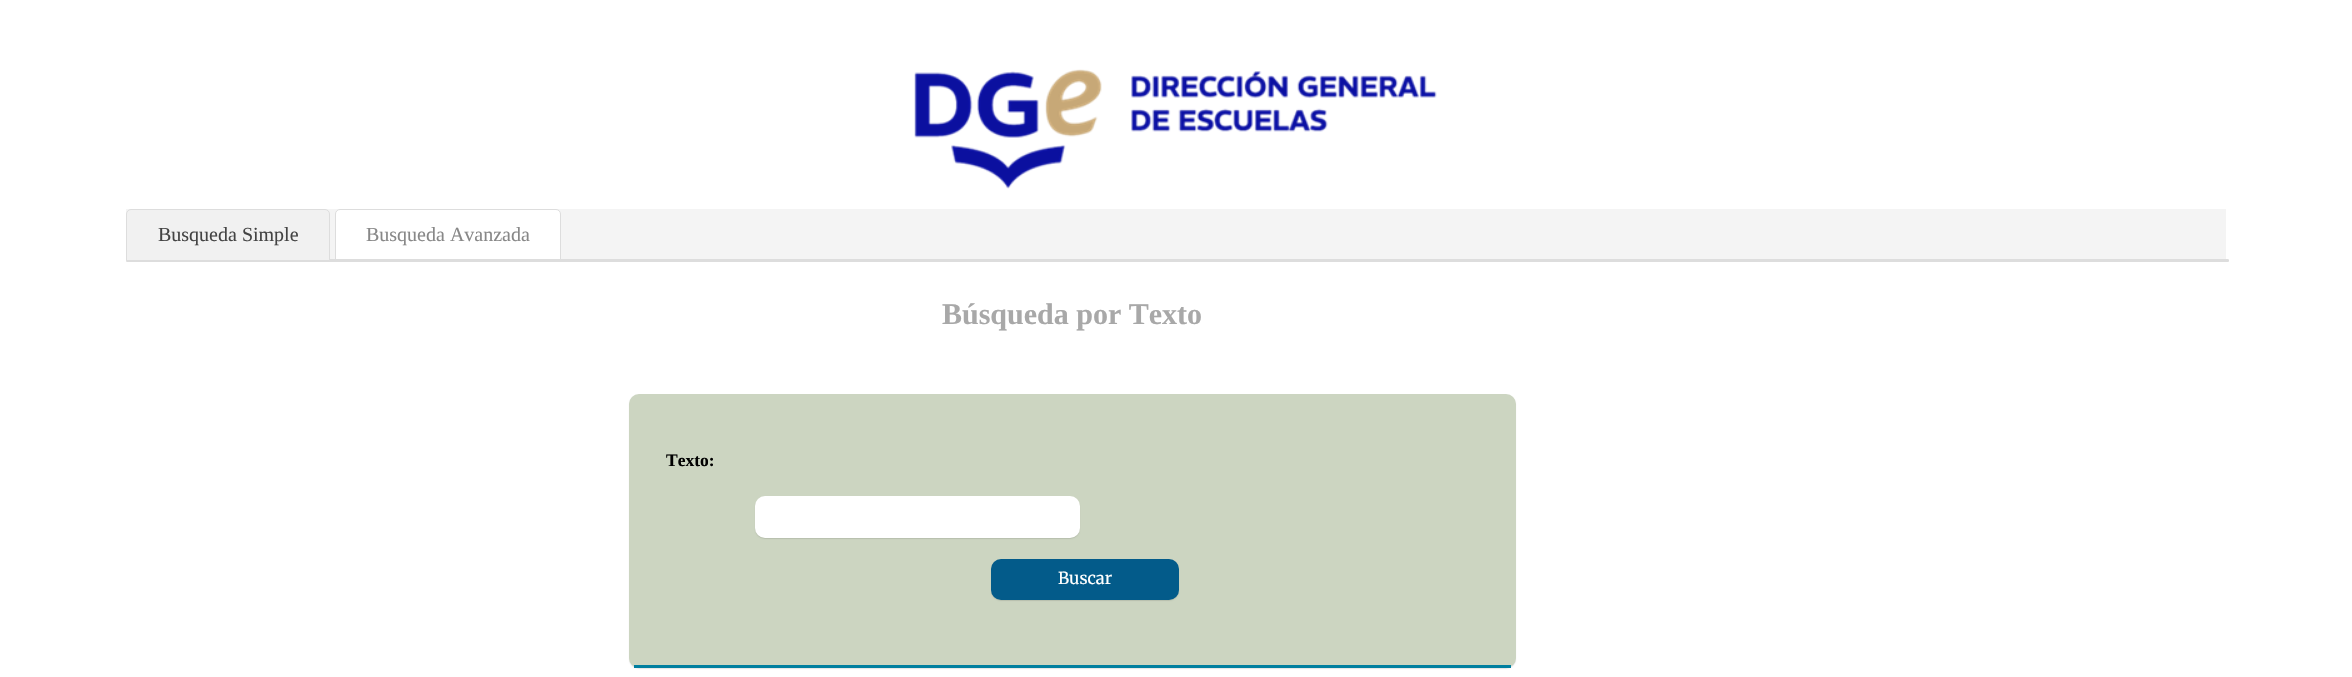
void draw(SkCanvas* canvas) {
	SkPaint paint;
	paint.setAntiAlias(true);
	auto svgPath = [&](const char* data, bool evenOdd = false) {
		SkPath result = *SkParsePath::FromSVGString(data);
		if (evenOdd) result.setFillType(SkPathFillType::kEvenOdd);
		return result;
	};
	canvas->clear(0xffffffff);
	canvas->drawImageRect(SkImages::DeferredFromEncodedData(SkData::MakeFromFileName("img1.png")), SkRect::MakeXYWH(914, 69, 523, 120), SkSamplingOptions());
	paint.setColor(0xfff4f4f4);
	canvas->drawRect(SkRect::MakeXYWH(126, 209, 2100, 50), paint);
	paint.setColor(0xffffffff);
	canvas->drawPath(svgPath("M340 209.5H556C558.5 209.5 560.5 211.5 560.5 214V260.5H335.5V214C335.5 211.5 337.5 209.5 340 209.5Z"), paint);
	paint.setStroke(true);
	paint.setStrokeWidth(1);
	paint.setColor(0xffdddddd);
	canvas->drawPath(svgPath("M340 209.5H556C558.5 209.5 560.5 211.5 560.5 214V260.5H335.5V214C335.5 211.5 337.5 209.5 340 209.5Z"), paint);
	paint.setStroke(false);
	canvas->drawPath(svgPath("M126 259H2227.5C2228.5 259 2229 259.5 2229 260.5C2229 261.5 2228.5 262 2227.5 262H127.5C126.5 262 126 261.5 126 260.5Z"), paint);
	paint.setColor(0xfff1f1f1);
	canvas->drawPath(svgPath("M131 209.5H325C327.5 209.5 329.5 211.5 329.5 214V260.5H126.5V214C126.5 211.5 128.5 209.5 131 209.5Z"), paint);
	paint.setStroke(true);
	paint.setColor(0xffdddddd);
	canvas->drawPath(svgPath("M131 209.5H325C327.5 209.5 329.5 211.5 329.5 214V260.5H126.5V214C126.5 211.5 128.5 209.5 131 209.5Z"), paint);
	SkFont f1(fontMgr->matchFamilyStyle("Liberation Serif", SkFontStyle::Normal()), 20);
	f1.setSubpixel(true);
	paint.setStroke(false);
	paint.setColor(0xff444444);
	canvas->drawString("Busqueda Simple", 158, 241, f1, paint);
	paint.setColor(0xff888888);
	canvas->drawString("Busqueda Avanzada", 366, 241, f1, paint);
	SkFont f2(fontMgr->matchFamilyStyle("Liberation Serif", SkFontStyle::Bold()), 30);
	f2.setSubpixel(true);
	paint.setColor(0xffa8a8a8);
	canvas->drawString("Búsqueda por Texto", 942, 324, f2, paint);
	paint.setColor(0x1a000000);
	paint.setMaskFilter(SkMaskFilter::MakeBlur(kNormal_SkBlurStyle, 0.5));
	canvas->drawRoundRect(SkRect::MakeXYWH(629, 395, 887, 274), 10, 10, paint);
	paint.setMaskFilter(nullptr);
	paint.setColor(0xffccd5c1);
	canvas->drawRoundRect(SkRect::MakeXYWH(629, 394, 887, 274), 10, 10, paint);
	paint.setColor(0xff007f9f);
	canvas->drawRect(SkRect::MakeXYWH(634, 665, 877, 3), paint);
	SkFont f3(fontMgr->matchFamilyStyle("Liberation Serif", SkFontStyle::Bold()), 17.5);
	f3.setSubpixel(true);
	paint.setColor(0xff000000);
	canvas->drawString("Texto:", 666, 466, f3, paint);
	paint.setColor(0x1a000000);
	paint.setMaskFilter(SkMaskFilter::MakeBlur(kNormal_SkBlurStyle, 0.5));
	canvas->drawRoundRect(SkRect::MakeXYWH(755, 498, 325, 41), 10, 10, paint);
	paint.setMaskFilter(nullptr);
	paint.setColor(0xffffffff);
	canvas->drawRoundRect(SkRect::MakeXYWH(755, 496, 325, 42), 10, 10, paint);
	paint.setColor(0x1a000000);
	paint.setMaskFilter(SkMaskFilter::MakeBlur(kNormal_SkBlurStyle, 0.5));
	canvas->drawRoundRect(SkRect::MakeXYWH(991, 560, 188, 41), 10, 10, paint);
	paint.setMaskFilter(nullptr);
	paint.setColor(0xff035b8a);
	canvas->drawRoundRect(SkRect::MakeXYWH(991, 559, 188, 41), 10, 10, paint);
	SkFont f4(fontMgr->matchFamilyStyle("Merriweather", SkFontStyle::Normal()), 16.5);
	f4.setSubpixel(true);
	paint.setColor(0xffffffff);
	canvas->drawString("Buscar", 1058, 584, f4, paint);
}
